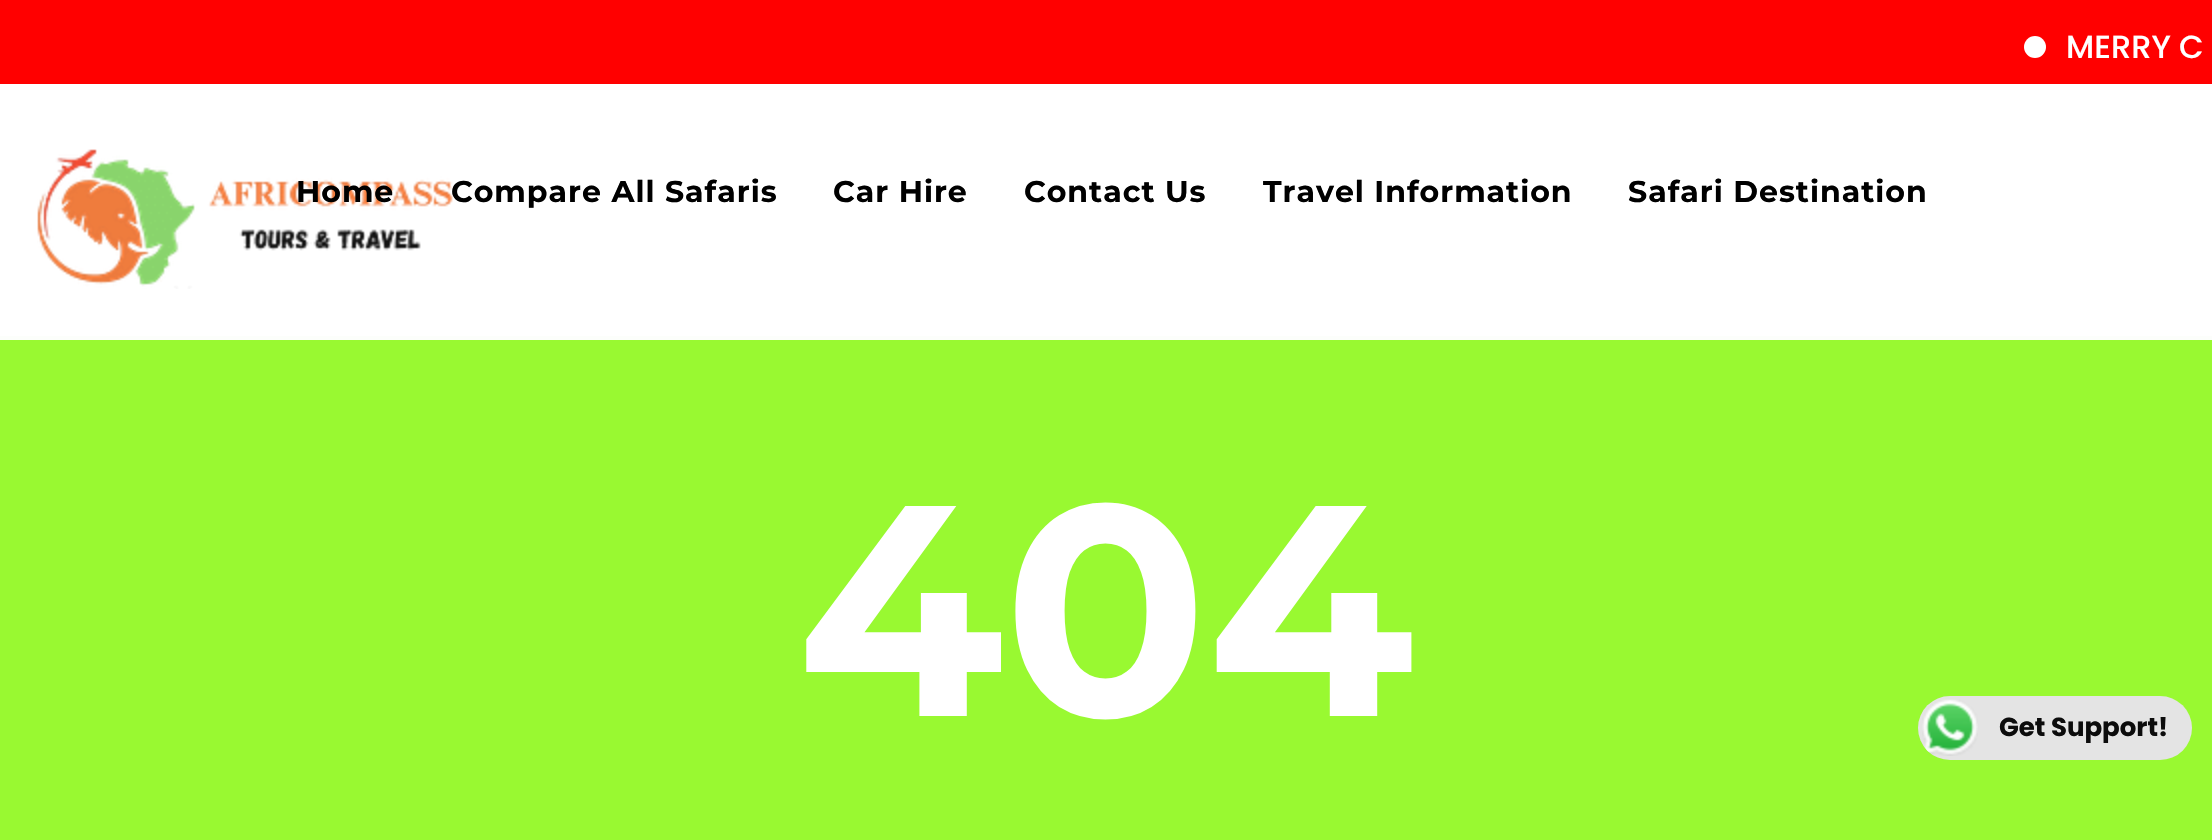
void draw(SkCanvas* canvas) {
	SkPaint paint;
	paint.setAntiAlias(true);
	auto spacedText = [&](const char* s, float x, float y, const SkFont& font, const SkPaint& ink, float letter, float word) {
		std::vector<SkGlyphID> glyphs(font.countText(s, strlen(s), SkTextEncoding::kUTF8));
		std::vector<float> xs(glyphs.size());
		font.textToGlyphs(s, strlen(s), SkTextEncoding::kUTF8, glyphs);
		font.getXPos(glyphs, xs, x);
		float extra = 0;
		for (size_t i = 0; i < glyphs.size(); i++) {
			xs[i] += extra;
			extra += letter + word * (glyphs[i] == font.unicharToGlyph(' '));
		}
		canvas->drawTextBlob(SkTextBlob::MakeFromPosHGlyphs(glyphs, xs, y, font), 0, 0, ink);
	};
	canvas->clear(0xffff0000);
	paint.setColor(0xffffffff);
	canvas->drawCircle(2035, 47, 11, paint);
	SkFont f1(fontMgr->matchFamilyStyle("Poppins", SkFontStyle(500, SkFontStyle::kNormal_Width, SkFontStyle::kUpright_Slant)), 32);
	f1.setSubpixel(true);
	canvas->drawString("MERRY C", 2066, 58, f1, paint);
	canvas->drawRect(SkRect::MakeXYWH(0, 84, 2212, 252), paint);
	paint.setColor(0xfffcfefb);
	canvas->drawRect(SkRect::MakeXYWH(0, 336, 2212, 4), paint);
	canvas->drawImageRect(SkImages::DeferredFromEncodedData(SkData::MakeFromFileName("img1.png")), SkRect::MakeXYWH(37, 149, 416, 140), SkSamplingOptions());
	SkFont f2(fontMgr->matchFamilyStyle("Montserrat", SkFontStyle::Bold()), 30);
	f2.setSubpixel(true);
	paint.setColor(0xff000000);
	spacedText("Home", 296, 202, f2, paint, 1, 0);
	spacedText("Compare All Safaris", 451, 202, f2, paint, 1, 0);
	spacedText("Car Hire", 833, 202, f2, paint, 1, 0);
	spacedText("Contact Us", 1024, 202, f2, paint, 1, 0);
	spacedText("Travel Information", 1263, 202, f2, paint, 1, 0);
	spacedText("Safari Destination", 1628, 202, f2, paint, 1, 0);
	paint.setColor(0xff99f931);
	canvas->drawRect(SkRect::MakeXYWH(0, 340, 2212, 500), paint);
	SkFont f3(fontMgr->matchFamilyStyle("Montserrat", SkFontStyle::Bold()), 300);
	f3.setSubpixel(true);
	paint.setColor(0xffffffff);
	canvas->drawString("404", 797, 716, f3, paint);
	paint.setColor(0xffe4e4e4);
	canvas->drawRoundRect(SkRect::MakeXYWH(1918, 696, 274, 64), 32, 32, paint);
	canvas->drawImageRect(SkImages::DeferredFromEncodedData(SkData::MakeFromFileName("img2.png")), SkRect::MakeXYWH(1922, 699, 56, 57), SkSamplingOptions());
	SkFont f4(fontMgr->matchFamilyStyle("Poppins", SkFontStyle::Bold()), 26);
	f4.setSubpixel(true);
	paint.setColor(0xff0c0c0c);
	canvas->drawString("Get Support!", 1999, 736, f4, paint);
}
